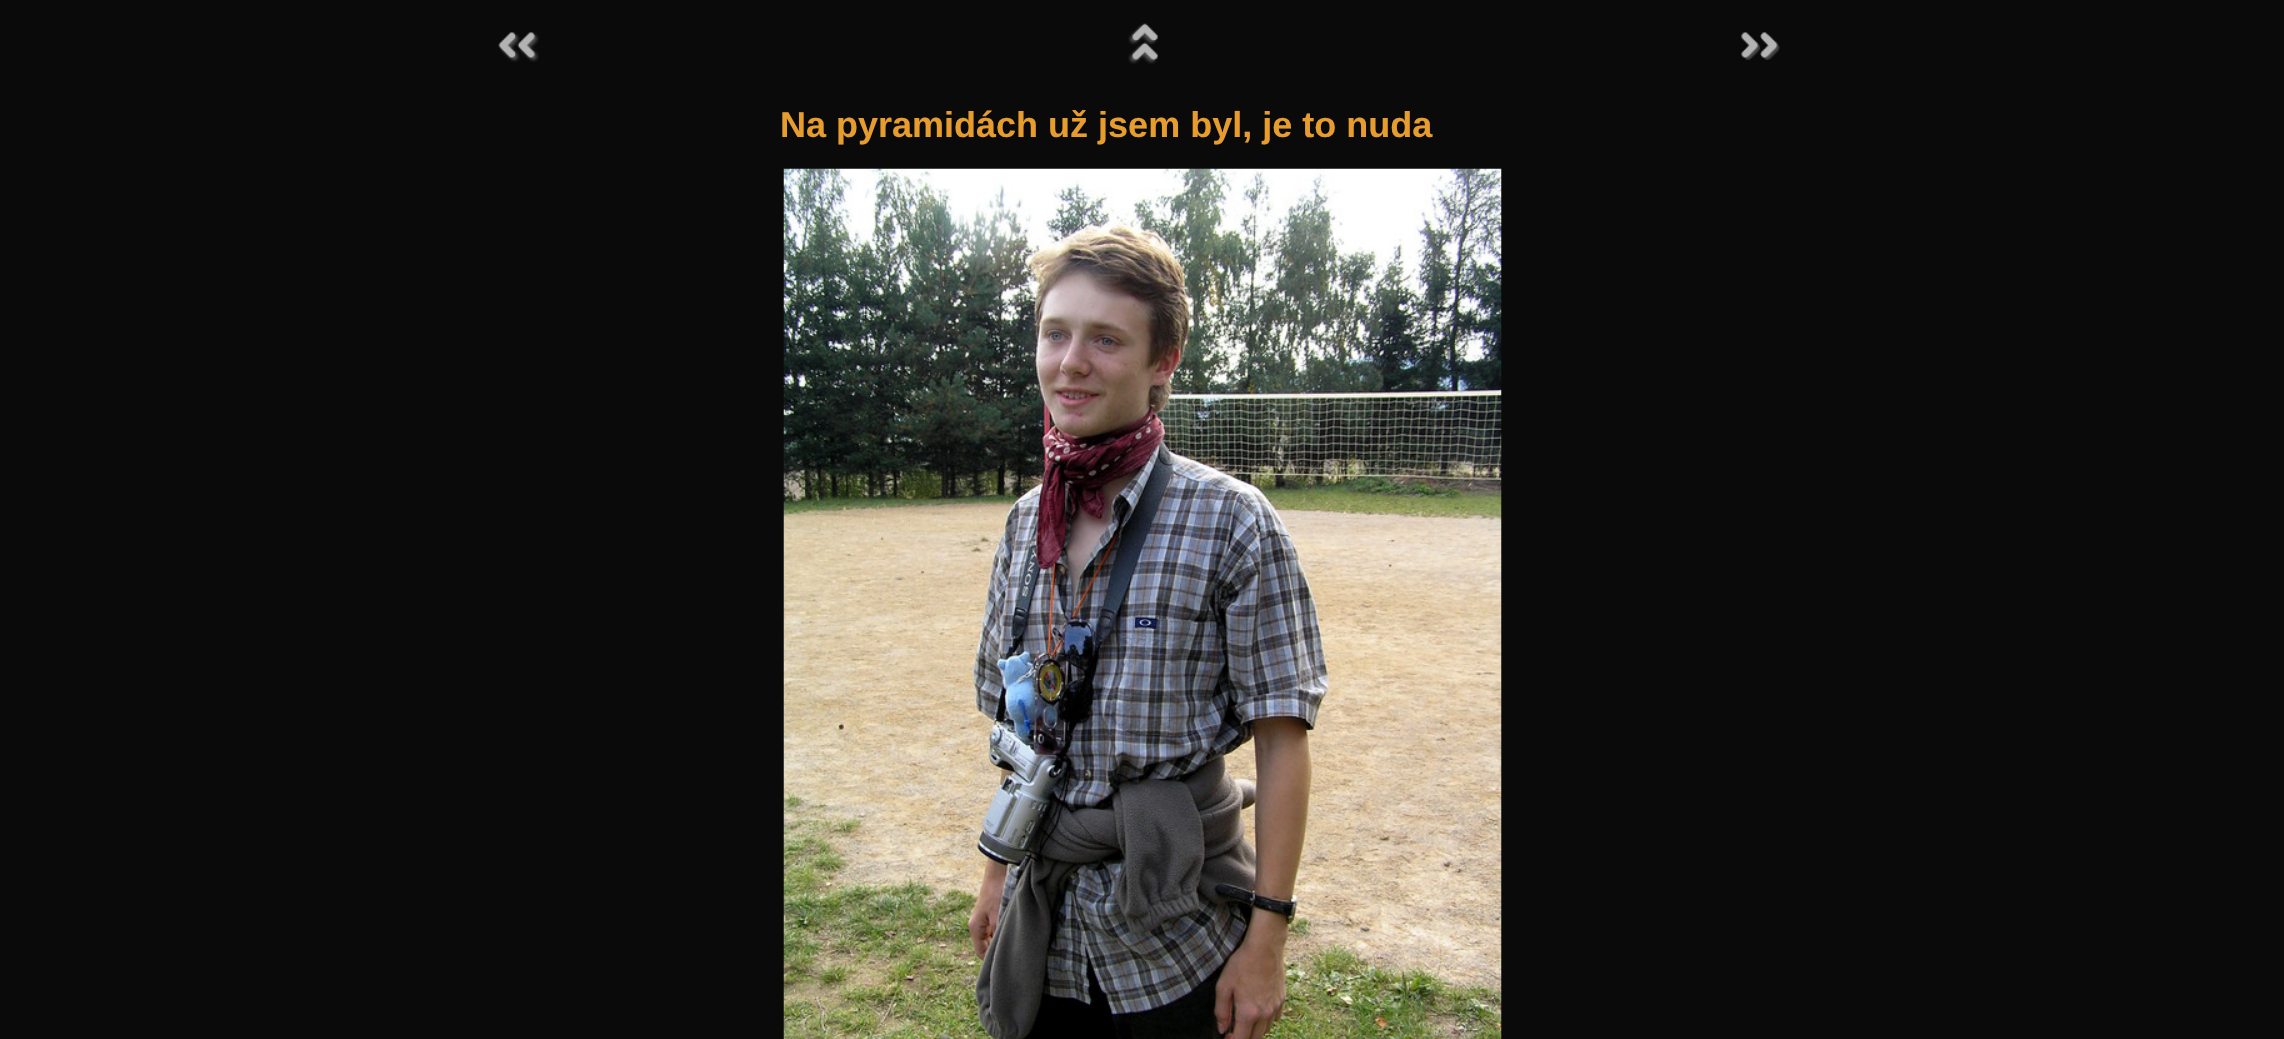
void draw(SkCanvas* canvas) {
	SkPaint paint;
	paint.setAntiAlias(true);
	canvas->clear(0xff0a0a0a);
	canvas->drawImageRect(SkImages::DeferredFromEncodedData(SkData::MakeFromFileName("img1.png")), SkRect::MakeXYWH(498, 32, 41, 30), SkSamplingOptions());
	canvas->drawImageRect(SkImages::DeferredFromEncodedData(SkData::MakeFromFileName("img2.png")), SkRect::MakeXYWH(1128, 23, 30, 41), SkSamplingOptions());
	canvas->drawImageRect(SkImages::DeferredFromEncodedData(SkData::MakeFromFileName("img3.png")), SkRect::MakeXYWH(1741, 32, 39, 28), SkSamplingOptions());
	SkFont f1(fontMgr->matchFamilyStyle("Liberation Sans", SkFontStyle::Bold()), 36);
	f1.setSubpixel(true);
	paint.setColor(0xffe69d2e);
	canvas->drawString("Na pyramidách už jsem byl, je to nuda", 780, 137, f1, paint);
	canvas->drawImageRect(SkImages::DeferredFromEncodedData(SkData::MakeFromFileName("img4.png")), SkRect::MakeXYWH(783, 168, 719, 871), SkSamplingOptions());
}
